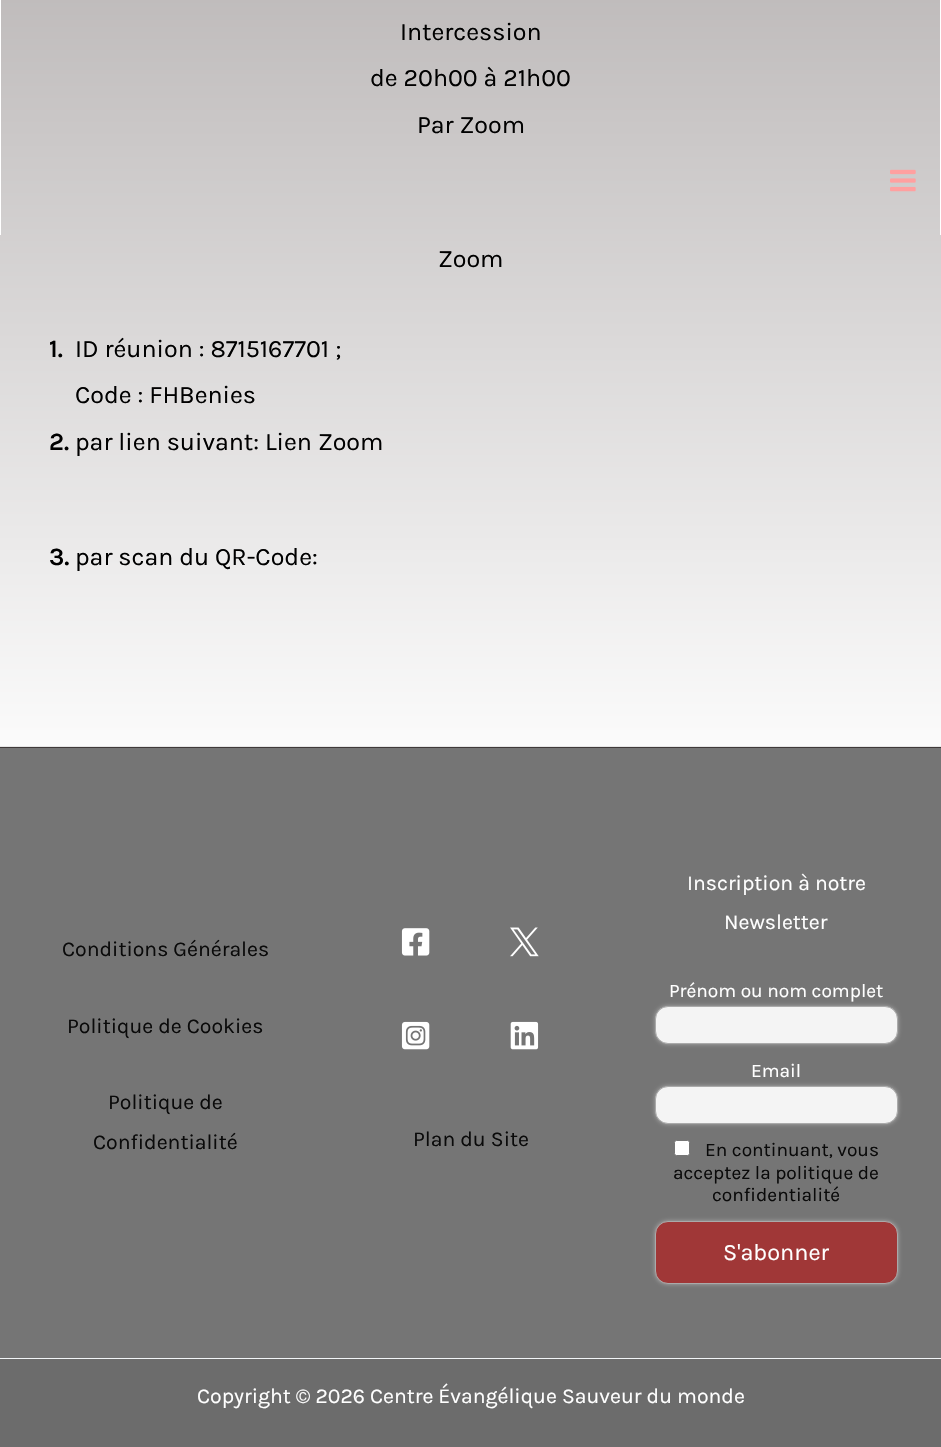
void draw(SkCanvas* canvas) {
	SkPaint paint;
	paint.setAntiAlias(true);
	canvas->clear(0xff3f3a3a);
	{
		const SkColor colors[] = {0xfffbfbfb, 0xff7b7373};
		const float stops[] = {0, 1};
		const SkPoint ends[] = {{471, 746}, {471, -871}};
		paint.setShader(SkGradientShader::MakeLinear(ends, colors, stops, 2, SkTileMode::kClamp));
		paint.setAlpha(255);
	}
	canvas->drawRect(SkRect::MakeXYWH(0, 0, 941, 746), paint);
	paint.setShader(nullptr);
	paint.setColor(0xffffffff);
	canvas->drawRect(SkRect::MakeXYWH(940, 0, 1, 235), paint);
	canvas->drawRect(SkRect::MakeXYWH(0, 0, 1, 235), paint);
	SkFont f1(fontMgr->matchFamilyStyle("Karla", SkFontStyle::Normal()), 25);
	f1.setSubpixel(true);
	paint.setColor(0xff000000);
	canvas->drawString("Intercession", 400, 40, f1, paint);
	canvas->drawString("de 20h00 à 21h00", 370, 86, f1, paint);
	canvas->drawString("Par Zoom", 417, 133, f1, paint);
	canvas->drawString("Zoom", 438, 267, f1, paint);
	SkFont f2(fontMgr->matchFamilyStyle("Karla", SkFontStyle(600, SkFontStyle::kNormal_Width, SkFontStyle::kUpright_Slant)), 25);
	f2.setSubpixel(true);
	canvas->drawString("1.", 49, 357, f2, paint);
	canvas->drawString("ID réunion : 8715167701 ;", 75, 357, f1, paint);
	canvas->drawString("Code : FHBenies", 75, 403, f1, paint);
	canvas->drawString("2.", 49, 450, f2, paint);
	canvas->drawString("par lien suivant: Lien Zoom", 75, 450, f1, paint);
	canvas->drawString("3.", 49, 565, f2, paint);
	canvas->drawString("par scan du QR-Code:", 75, 565, f1, paint);
	paint.setColor(0xff757575);
	canvas->drawRect(SkRect::MakeXYWH(0, 748, 941, 610), paint);
	paint.setColor(0xffe6e6e6);
	canvas->drawRect(SkRect::MakeXYWH(0, 746, 941, 1), paint);
	SkFont f3(fontMgr->matchFamilyStyle("Karla", SkFontStyle::Normal()), 21.25);
	f3.setSubpixel(true);
	paint.setColor(0xff0a0a0a);
	canvas->drawString("Conditions Générales", 62, 956, f3, paint);
	canvas->drawString("Politique de Cookies", 67, 1033, f3, paint);
	canvas->drawString("Politique de", 108, 1109, f3, paint);
	canvas->drawString("Confidentialité", 93, 1149, f3, paint);
	canvas->drawImageRect(SkImages::DeferredFromEncodedData(SkData::MakeFromFileName("img1.png")), SkRect::MakeXYWH(401, 928, 29, 28), SkSamplingOptions());
	canvas->drawImageRect(SkImages::DeferredFromEncodedData(SkData::MakeFromFileName("img2.png")), SkRect::MakeXYWH(510, 927, 29, 30), SkSamplingOptions());
	canvas->drawImageRect(SkImages::DeferredFromEncodedData(SkData::MakeFromFileName("img3.png")), SkRect::MakeXYWH(401, 1021, 29, 29), SkSamplingOptions());
	canvas->drawImageRect(SkImages::DeferredFromEncodedData(SkData::MakeFromFileName("img4.png")), SkRect::MakeXYWH(510, 1021, 29, 29), SkSamplingOptions());
	canvas->drawString("Plan du Site", 413, 1146, f3, paint);
	paint.setColor(0xffffffff);
	canvas->drawString("Inscription à notre", 687, 890, f3, paint);
	canvas->drawString("Newsletter", 724, 929, f3, paint);
	paint.setColor(0xffaaaaaa);
	paint.setMaskFilter(SkMaskFilter::MakeBlur(kNormal_SkBlurStyle, 2));
	canvas->drawRoundRect(SkRect::MakeXYWH(655, 1006, 243, 38), 13, 13, paint);
	paint.setMaskFilter(nullptr);
	SkFont f4(fontMgr->matchFamilyStyle("Karla", SkFontStyle::Normal()), 19.1);
	f4.setSubpixel(true);
	paint.setColor(0xffffffff);
	canvas->drawString("Prénom ou nom complet", 669, 997, f4, paint);
	paint.setColor(0xfff4f4f4);
	canvas->drawRoundRect(SkRect::MakeXYWH(655.5, 1006.5, 242, 37), 12.5, 12.5, paint);
	paint.setStroke(true);
	paint.setStrokeWidth(1);
	paint.setColor(0xffaaaaaa);
	canvas->drawRoundRect(SkRect::MakeXYWH(655.5, 1006.5, 242, 37), 12.5, 12.5, paint);
	paint.setStroke(false);
	paint.setColor(0xffffffff);
	canvas->drawString("Email", 751, 1077, f4, paint);
	paint.setColor(0xffaaaaaa);
	paint.setMaskFilter(SkMaskFilter::MakeBlur(kNormal_SkBlurStyle, 2));
	canvas->drawRoundRect(SkRect::MakeXYWH(655, 1086, 243, 38), 13, 13, paint);
	paint.setMaskFilter(nullptr);
	paint.setColor(0xfff4f4f4);
	canvas->drawRoundRect(SkRect::MakeXYWH(655.5, 1086.5, 242, 37), 12.5, 12.5, paint);
	paint.setStroke(true);
	paint.setColor(0xffaaaaaa);
	canvas->drawRoundRect(SkRect::MakeXYWH(655.5, 1086.5, 242, 37), 12.5, 12.5, paint);
	paint.setStroke(false);
	paint.setColor(0xffffffff);
	canvas->drawRoundRect(SkRect::MakeXYWH(674.5, 1140.5, 15, 15), 2, 2, paint);
	paint.setStroke(true);
	paint.setColor(0xff767676);
	canvas->drawRoundRect(SkRect::MakeXYWH(674.5, 1140.5, 15, 15), 2, 2, paint);
	paint.setStroke(false);
	paint.setColor(0xff0a0a0a);
	canvas->drawString("En continuant, vous", 705, 1156, f4, paint);
	canvas->drawString("acceptez la politique de", 673, 1179, f4, paint);
	canvas->drawString("confidentialité", 712, 1201, f4, paint);
	paint.setColor(0xffaaaaaa);
	paint.setMaskFilter(SkMaskFilter::MakeBlur(kNormal_SkBlurStyle, 2));
	canvas->drawRoundRect(SkRect::MakeXYWH(655, 1221, 243, 63), 13, 13, paint);
	paint.setMaskFilter(nullptr);
	paint.setColor(0xffa03737);
	canvas->drawRoundRect(SkRect::MakeXYWH(655.5, 1221.5, 242, 62), 12.5, 12.5, paint);
	paint.setStroke(true);
	paint.setColor(0xffaaaaaa);
	canvas->drawRoundRect(SkRect::MakeXYWH(655.5, 1221.5, 242, 62), 12.5, 12.5, paint);
	SkFont f5(fontMgr->matchFamilyStyle("Karla", SkFontStyle::Normal()), 23.5);
	f5.setSubpixel(true);
	paint.setStroke(false);
	paint.setColor(0xffffffff);
	canvas->drawString("S'abonner", 723, 1260, f5, paint);
	paint.setColor(0xff6c6c6c);
	canvas->drawRect(SkRect::MakeXYWH(0, 1359, 941, 88), paint);
	paint.setColor(0xfff2f5f7);
	canvas->drawRect(SkRect::MakeXYWH(0, 1358, 941, 1), paint);
	paint.setColor(0xffffffff);
	canvas->drawString("Copyright © 2026 Centre Évangélique Sauveur du monde", 197, 1403, f3, paint);
	canvas->drawImageRect(SkImages::DeferredFromEncodedData(SkData::MakeFromFileName("img5.png")), SkRect::MakeXYWH(890, 169, 26, 23), SkSamplingOptions());
}
